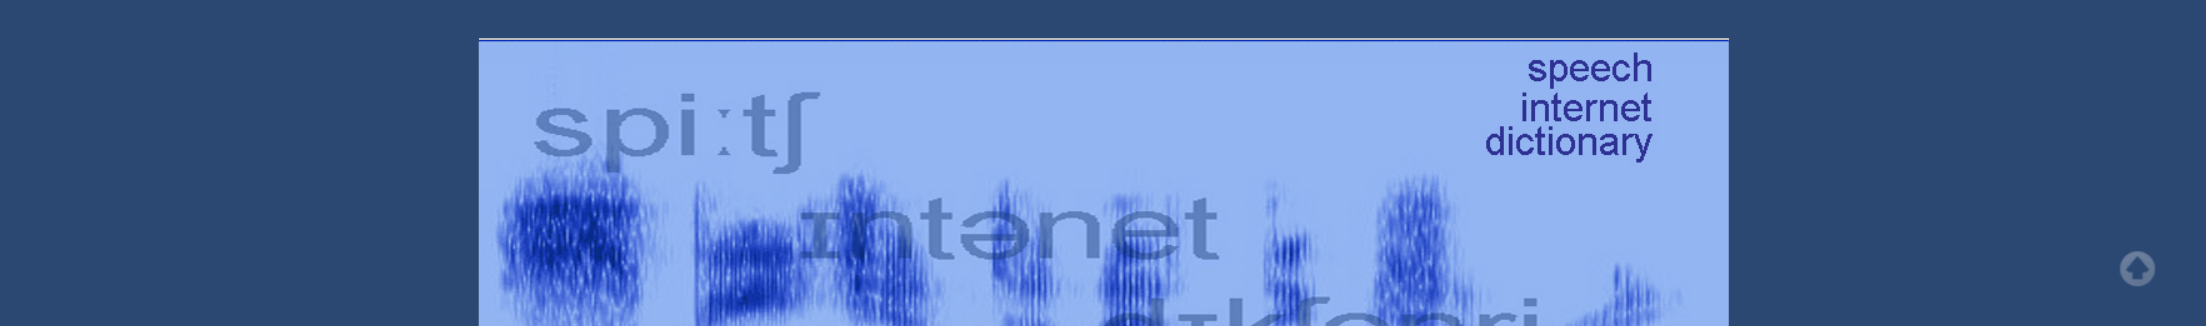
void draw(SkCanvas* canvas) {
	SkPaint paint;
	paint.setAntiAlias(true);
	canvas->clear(0xff2b4873);
	paint.setColor(0xffbbbbbb);
	canvas->drawRect(SkRect::MakeXYWH(479, 38, 1250, 3), paint);
	canvas->drawImageRect(SkImages::DeferredFromEncodedData(SkData::MakeFromFileName("img1.png")), SkRect::MakeXYWH(478, 40, 1251, 286), SkSamplingOptions());
	canvas->drawImageRect(SkImages::DeferredFromEncodedData(SkData::MakeFromFileName("img2.png")), SkRect::MakeXYWH(2119, 251, 37, 36), SkSamplingOptions());
}
